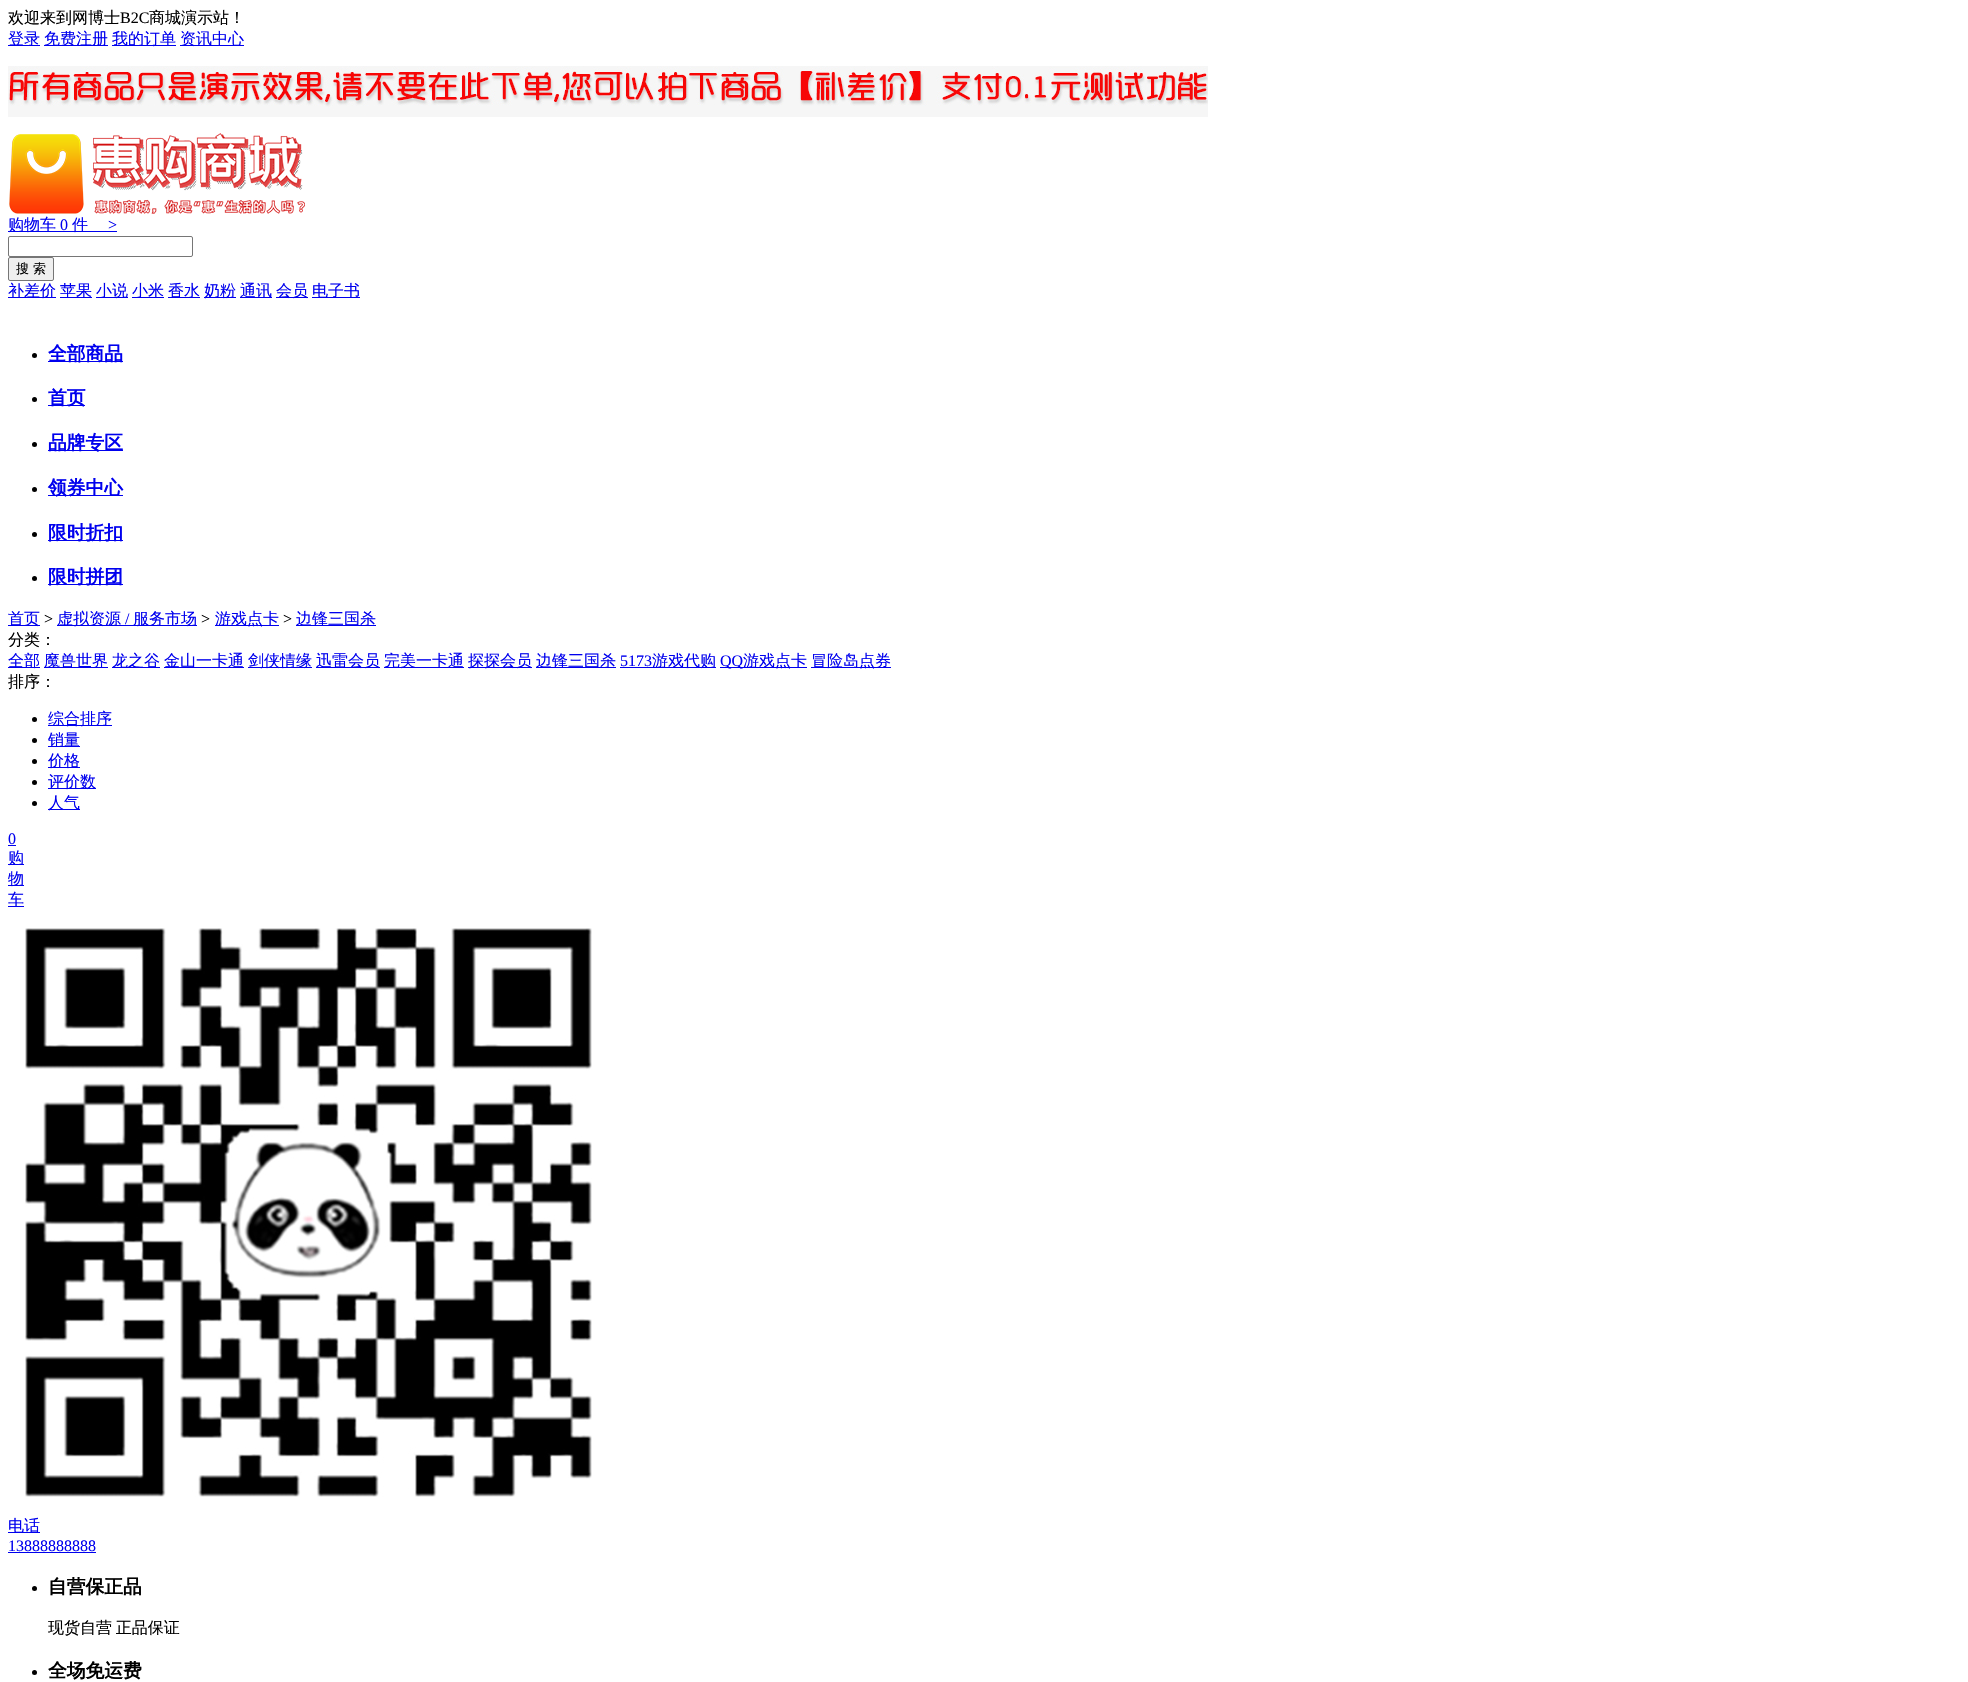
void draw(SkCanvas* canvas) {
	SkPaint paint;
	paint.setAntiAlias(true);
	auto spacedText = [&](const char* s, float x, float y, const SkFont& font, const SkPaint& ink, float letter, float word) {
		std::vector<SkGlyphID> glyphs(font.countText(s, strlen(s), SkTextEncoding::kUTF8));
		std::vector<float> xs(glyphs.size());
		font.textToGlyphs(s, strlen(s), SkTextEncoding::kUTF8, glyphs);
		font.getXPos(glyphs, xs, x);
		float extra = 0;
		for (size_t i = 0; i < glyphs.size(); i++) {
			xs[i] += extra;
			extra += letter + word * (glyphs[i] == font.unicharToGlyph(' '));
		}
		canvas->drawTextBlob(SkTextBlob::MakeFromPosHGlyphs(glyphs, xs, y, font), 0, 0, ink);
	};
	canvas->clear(0xffffffff);
	SkFont f1(fontMgr->matchFamilyStyle("WenQuanYi Zen Hei", SkFontStyle(500, SkFontStyle::kNormal_Width, SkFontStyle::kUpright_Slant)), 16);
	f1.setSubpixel(true);
	paint.setColor(0xff000000);
	canvas->drawString("欢迎来到网博士", 8, 23, f1, paint);
	SkFont f2(fontMgr->matchFamilyStyle("Liberation Serif", SkFontStyle::Normal()), 16);
	f2.setSubpixel(true);
	canvas->drawString("B2C", 120, 23, f2, paint);
	canvas->drawString("商城演示站！", 149, 23, f1, paint);
	paint.setColor(0xff0000ee);
	canvas->drawRect(SkRect::MakeXYWH(8, 45, 32, 1), paint);
	canvas->drawString("登录", 8, 44, f1, paint);
	canvas->drawRect(SkRect::MakeXYWH(44, 45, 64, 1), paint);
	canvas->drawString("免费注册", 44, 44, f1, paint);
	canvas->drawRect(SkRect::MakeXYWH(112, 45, 64, 1), paint);
	canvas->drawString("我的订单", 112, 44, f1, paint);
	canvas->drawRect(SkRect::MakeXYWH(180, 45, 64, 1), paint);
	canvas->drawString("资讯中心", 180, 44, f1, paint);
	canvas->drawImageRect(SkImages::DeferredFromEncodedData(SkData::MakeFromFileName("img1.png")), SkRect::MakeXYWH(8, 66, 1200, 51), SkSamplingOptions());
	canvas->drawImageRect(SkImages::DeferredFromEncodedData(SkData::MakeFromFileName("img2.png")), SkRect::MakeXYWH(9, 133, 296, 81), SkSamplingOptions());
	canvas->drawRect(SkRect::MakeXYWH(8, 231, 109, 1), paint);
	canvas->drawString("购物车", 8, 230, f1, paint);
	canvas->drawString("0", 60, 230, f2, paint);
	canvas->drawString("件", 72, 230, f1, paint);
	canvas->drawString(">", 108, 230, f2, paint);
	paint.setStroke(true);
	paint.setStrokeWidth(1);
	paint.setColor(0xff767676);
	canvas->drawRoundRect(SkRect::MakeXYWH(8.5, 236.5, 184, 20), 1.5, 1.5, paint);
	paint.setStroke(false);
	paint.setColor(0xffefefef);
	canvas->drawRoundRect(SkRect::MakeXYWH(8.5, 257.5, 45, 23), 1.5, 1.5, paint);
	paint.setStroke(true);
	paint.setColor(0xff767676);
	canvas->drawRoundRect(SkRect::MakeXYWH(8.5, 257.5, 45, 23), 1.5, 1.5, paint);
	SkFont f3(fontMgr->matchFamilyStyle("WenQuanYi Zen Hei", SkFontStyle(500, SkFontStyle::kNormal_Width, SkFontStyle::kUpright_Slant)), 13);
	f3.setSubpixel(true);
	paint.setStroke(false);
	paint.setColor(0xff000000);
	canvas->drawString("搜 索", 16, 273, f3, paint);
	paint.setColor(0xff0000ee);
	canvas->drawRect(SkRect::MakeXYWH(8, 297, 48, 1), paint);
	canvas->drawString("补差价", 8, 296, f1, paint);
	canvas->drawRect(SkRect::MakeXYWH(60, 297, 32, 1), paint);
	canvas->drawString("苹果", 60, 296, f1, paint);
	canvas->drawRect(SkRect::MakeXYWH(96, 297, 32, 1), paint);
	canvas->drawString("小说", 96, 296, f1, paint);
	canvas->drawRect(SkRect::MakeXYWH(132, 297, 32, 1), paint);
	canvas->drawString("小米", 132, 296, f1, paint);
	canvas->drawRect(SkRect::MakeXYWH(168, 297, 32, 1), paint);
	canvas->drawString("香水", 168, 296, f1, paint);
	canvas->drawRect(SkRect::MakeXYWH(204, 297, 32, 1), paint);
	canvas->drawString("奶粉", 204, 296, f1, paint);
	canvas->drawRect(SkRect::MakeXYWH(240, 297, 32, 1), paint);
	canvas->drawString("通讯", 240, 296, f1, paint);
	canvas->drawRect(SkRect::MakeXYWH(276, 297, 32, 1), paint);
	canvas->drawString("会员", 276, 296, f1, paint);
	canvas->drawRect(SkRect::MakeXYWH(312, 297, 48, 1), paint);
	canvas->drawString("电子书", 312, 296, f1, paint);
	paint.setColor(0xff000000);
	canvas->drawCircle(34.5, 355.5, 2.5, paint);
	paint.setColor(0xff0000ee);
	canvas->drawRect(SkRect::MakeXYWH(48, 361, 75, 1), paint);
	SkFont f4(fontMgr->matchFamilyStyle("WenQuanYi Zen Hei", SkFontStyle::Bold()), 18.75);
	f4.setSubpixel(true);
	canvas->drawString("全部商品", 48, 360, f4, paint);
	paint.setColor(0xff000000);
	canvas->drawCircle(34.5, 399.5, 2.5, paint);
	paint.setColor(0xff0000ee);
	canvas->drawRect(SkRect::MakeXYWH(48, 405, 37, 1), paint);
	canvas->drawString("首页", 48, 404, f4, paint);
	paint.setColor(0xff000000);
	canvas->drawCircle(34.5, 444.5, 2.5, paint);
	paint.setColor(0xff0000ee);
	canvas->drawRect(SkRect::MakeXYWH(48, 450, 75, 1), paint);
	canvas->drawString("品牌专区", 48, 449, f4, paint);
	paint.setColor(0xff000000);
	canvas->drawCircle(34.5, 489.5, 2.5, paint);
	paint.setColor(0xff0000ee);
	canvas->drawRect(SkRect::MakeXYWH(48, 495, 75, 1), paint);
	canvas->drawString("领券中心", 48, 494, f4, paint);
	paint.setColor(0xff000000);
	canvas->drawCircle(34.5, 534.5, 2.5, paint);
	paint.setColor(0xff0000ee);
	canvas->drawRect(SkRect::MakeXYWH(48, 540, 75, 1), paint);
	canvas->drawString("限时折扣", 48, 539, f4, paint);
	paint.setColor(0xff000000);
	canvas->drawCircle(34.5, 578.5, 2.5, paint);
	paint.setColor(0xff0000ee);
	canvas->drawRect(SkRect::MakeXYWH(48, 584, 75, 1), paint);
	canvas->drawString("限时拼团", 48, 583, f4, paint);
	canvas->drawRect(SkRect::MakeXYWH(8, 625, 32, 1), paint);
	canvas->drawString("首页", 8, 624, f1, paint);
	paint.setColor(0xff000000);
	canvas->drawString(">", 44, 624, f2, paint);
	paint.setColor(0xff0000ee);
	canvas->drawRect(SkRect::MakeXYWH(57, 625, 140, 1), paint);
	canvas->drawString("虚拟资源", 57, 624, f1, paint);
	canvas->drawString("/", 125, 624, f2, paint);
	canvas->drawString("服务市场", 133, 624, f1, paint);
	paint.setColor(0xff000000);
	canvas->drawString(">", 201, 624, f2, paint);
	paint.setColor(0xff0000ee);
	canvas->drawRect(SkRect::MakeXYWH(215, 625, 64, 1), paint);
	canvas->drawString("游戏点卡", 215, 624, f1, paint);
	paint.setColor(0xff000000);
	canvas->drawString(">", 283, 624, f2, paint);
	paint.setColor(0xff0000ee);
	canvas->drawRect(SkRect::MakeXYWH(296, 625, 80, 1), paint);
	canvas->drawString("边锋三国杀", 296, 624, f1, paint);
	paint.setColor(0xff000000);
	canvas->drawString("分类：", 8, 645, f1, paint);
	paint.setColor(0xff0000ee);
	canvas->drawRect(SkRect::MakeXYWH(8, 667, 32, 1), paint);
	canvas->drawString("全部", 8, 666, f1, paint);
	canvas->drawRect(SkRect::MakeXYWH(44, 667, 64, 1), paint);
	canvas->drawString("魔兽世界", 44, 666, f1, paint);
	canvas->drawRect(SkRect::MakeXYWH(112, 667, 48, 1), paint);
	canvas->drawString("龙之谷", 112, 666, f1, paint);
	canvas->drawRect(SkRect::MakeXYWH(164, 667, 80, 1), paint);
	canvas->drawString("金山一卡通", 164, 666, f1, paint);
	canvas->drawRect(SkRect::MakeXYWH(248, 667, 64, 1), paint);
	canvas->drawString("剑侠情缘", 248, 666, f1, paint);
	canvas->drawRect(SkRect::MakeXYWH(316, 667, 64, 1), paint);
	canvas->drawString("迅雷会员", 316, 666, f1, paint);
	canvas->drawRect(SkRect::MakeXYWH(384, 667, 80, 1), paint);
	canvas->drawString("完美一卡通", 384, 666, f1, paint);
	canvas->drawRect(SkRect::MakeXYWH(468, 667, 64, 1), paint);
	canvas->drawString("探探会员", 468, 666, f1, paint);
	canvas->drawRect(SkRect::MakeXYWH(536, 667, 80, 1), paint);
	canvas->drawString("边锋三国杀", 536, 666, f1, paint);
	canvas->drawString("5173", 620, 666, f2, paint);
	canvas->drawRect(SkRect::MakeXYWH(620, 667, 96, 1), paint);
	canvas->drawString("游戏代购", 652, 666, f1, paint);
	canvas->drawRect(SkRect::MakeXYWH(720, 667, 87, 1), paint);
	canvas->drawString("QQ", 720, 666, f2, paint);
	canvas->drawString("游戏点卡", 743, 666, f1, paint);
	canvas->drawRect(SkRect::MakeXYWH(811, 667, 80, 1), paint);
	canvas->drawString("冒险岛点券", 811, 666, f1, paint);
	paint.setColor(0xff000000);
	canvas->drawString("排序：", 8, 687, f1, paint);
	canvas->drawCircle(34.5, 719.5, 2.5, paint);
	paint.setColor(0xff0000ee);
	canvas->drawRect(SkRect::MakeXYWH(48, 725, 64, 1), paint);
	canvas->drawString("综合排序", 48, 724, f1, paint);
	paint.setColor(0xff000000);
	canvas->drawCircle(34.5, 740.5, 2.5, paint);
	paint.setColor(0xff0000ee);
	canvas->drawRect(SkRect::MakeXYWH(48, 746, 32, 1), paint);
	canvas->drawString("销量", 48, 745, f1, paint);
	paint.setColor(0xff000000);
	canvas->drawCircle(34.5, 761.5, 2.5, paint);
	paint.setColor(0xff0000ee);
	canvas->drawRect(SkRect::MakeXYWH(48, 767, 32, 1), paint);
	canvas->drawString("价格", 48, 766, f1, paint);
	paint.setColor(0xff000000);
	canvas->drawCircle(34.5, 782.5, 2.5, paint);
	paint.setColor(0xff0000ee);
	canvas->drawRect(SkRect::MakeXYWH(48, 788, 48, 1), paint);
	canvas->drawString("评价数", 48, 787, f1, paint);
	paint.setColor(0xff000000);
	canvas->drawCircle(34.5, 803.5, 2.5, paint);
	paint.setColor(0xff0000ee);
	canvas->drawRect(SkRect::MakeXYWH(48, 809, 32, 1), paint);
	canvas->drawString("人气", 48, 808, f1, paint);
	canvas->drawString("0", 8, 844, f2, paint);
	canvas->drawRect(SkRect::MakeXYWH(8, 845, 8, 1), paint);
	canvas->drawRect(SkRect::MakeXYWH(8, 864, 16, 1), paint);
	canvas->drawString("购", 8, 863, f1, paint);
	canvas->drawRect(SkRect::MakeXYWH(8, 885, 16, 1), paint);
	canvas->drawString("物", 8, 884, f1, paint);
	canvas->drawRect(SkRect::MakeXYWH(8, 906, 16, 1), paint);
	canvas->drawString("车", 8, 905, f1, paint);
	canvas->drawImageRect(SkImages::DeferredFromEncodedData(SkData::MakeFromFileName("img3.png")), SkRect::MakeXYWH(25, 928, 567, 569), SkSamplingOptions());
	canvas->drawRect(SkRect::MakeXYWH(8, 1532, 32, 1), paint);
	canvas->drawString("电话", 8, 1531, f1, paint);
	canvas->drawString("13888888888", 8, 1551, f2, paint);
	canvas->drawRect(SkRect::MakeXYWH(8, 1552, 88, 1), paint);
	paint.setColor(0xff000000);
	canvas->drawCircle(34.5, 1588.5, 2.5, paint);
	canvas->drawString("自营保正品", 48, 1593, f4, paint);
	spacedText("现货自营 正品保证", 48, 1633, f1, paint, 0, -1);
	canvas->drawCircle(34.5, 1672.5, 2.5, paint);
	canvas->drawString("全场免运费", 48, 1677, f4, paint);
}
